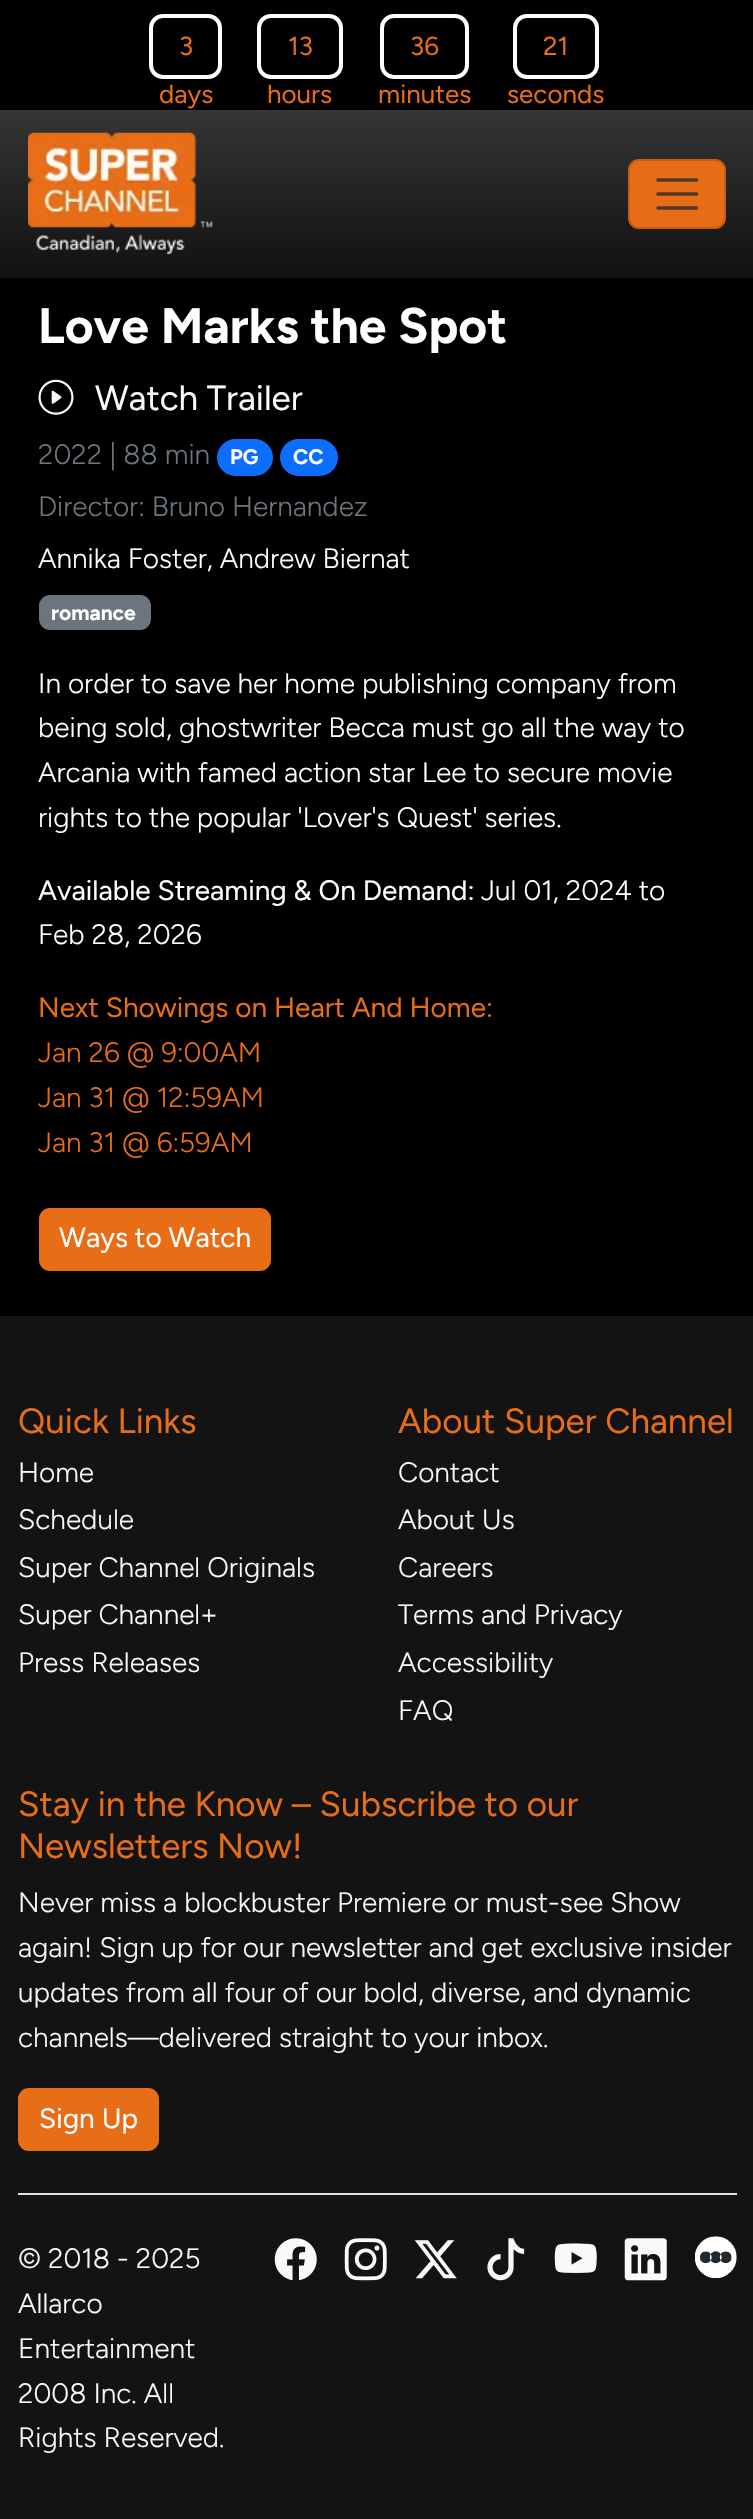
void draw(SkCanvas* canvas) {
	SkPaint paint;
	paint.setAntiAlias(true);
	auto svgPath = [&](const char* data, bool evenOdd = false) {
		SkPath result = *SkParsePath::FromSVGString(data);
		if (evenOdd) result.setFillType(SkPathFillType::kEvenOdd);
		return result;
	};
	canvas->clear(0xff000000);
	paint.setStroke(true);
	paint.setStrokeWidth(4);
	paint.setColor(0xffffffff);
	canvas->drawRoundRect(SkRect::MakeXYWH(151, 16, 69, 61), 12, 12, paint);
	SkFont f1(fontMgr->matchFamilyStyle("Figtree", SkFontStyle::Normal()), 26);
	f1.setSubpixel(true);
	paint.setStroke(false);
	paint.setColor(0xffe86d17);
	canvas->drawString("3", 179, 55, f1, paint);
	canvas->drawString("days", 159, 103, f1, paint);
	paint.setStroke(true);
	paint.setColor(0xffffffff);
	canvas->drawRoundRect(SkRect::MakeXYWH(259, 16, 82, 61), 12, 12, paint);
	paint.setStroke(false);
	paint.setColor(0xffe86d17);
	canvas->drawString("13", 288, 55, f1, paint);
	canvas->drawString("hours", 267, 103, f1, paint);
	paint.setStroke(true);
	paint.setColor(0xffffffff);
	canvas->drawRoundRect(SkRect::MakeXYWH(382, 16, 85, 61), 12, 12, paint);
	paint.setStroke(false);
	paint.setColor(0xffe86d17);
	canvas->drawString("36", 410, 55, f1, paint);
	canvas->drawString("minutes", 378, 103, f1, paint);
	paint.setStroke(true);
	paint.setColor(0xffffffff);
	canvas->drawRoundRect(SkRect::MakeXYWH(515, 16, 82, 61), 12, 12, paint);
	paint.setStroke(false);
	paint.setColor(0xffe86d17);
	canvas->drawString("21", 543, 55, f1, paint);
	canvas->drawString("seconds", 507, 103, f1, paint);
	{
		const SkColor colors[] = {0xff353535, 0xff111111};
		const float stops[] = {0, 1};
		const SkPoint ends[] = {{377, 110}, {377, 278}};
		paint.setShader(SkGradientShader::MakeLinear(ends, colors, stops, 2, SkTileMode::kClamp));
		paint.setAlpha(255);
	}
	canvas->drawRect(SkRect::MakeXYWH(0, 110, 753, 168), paint);
	canvas->drawImageRect(SkImages::DeferredFromEncodedData(SkData::MakeFromFileName("img1.png")), SkRect::MakeXYWH(28, 132, 185, 123), SkSamplingOptions());
	paint.setShader(nullptr);
	paint.setColor(0xffe86d17);
	canvas->drawRoundRect(SkRect::MakeXYWH(628, 159, 98, 70), 11, 11, paint);
	paint.setStroke(true);
	paint.setStrokeWidth(2);
	paint.setColor(0x26000000);
	canvas->drawRoundRect(SkRect::MakeXYWH(629, 160, 96, 68), 10, 10, paint);
	paint.setStrokeWidth(3.5);
	paint.setStrokeCap(SkPaint::kRound_Cap);
	paint.setColor(0xff533725);
	canvas->drawPath(svgPath("M658 180H696.5M658 194H696.5M658 208H696.5"), paint);
	SkFont f2(fontMgr->matchFamilyStyle("Figtree", SkFontStyle::Bold()), 49.75);
	f2.setSubpixel(true);
	paint.setStroke(false);
	paint.setColor(0xffffffff);
	canvas->drawString("Love Marks the Spot", 38, 343, f2, paint);
	canvas->drawImageRect(SkImages::DeferredFromEncodedData(SkData::MakeFromFileName("img2.png")), SkRect::MakeXYWH(38, 379, 36, 36), SkSamplingOptions());
	SkFont f3(fontMgr->matchFamilyStyle("Figtree", SkFontStyle::Normal()), 35);
	f3.setSubpixel(true);
	paint.setColor(0xfff8f9fa);
	canvas->drawString("Watch Trailer", 95, 410, f3, paint);
	SkFont f4(fontMgr->matchFamilyStyle("Figtree", SkFontStyle(300, SkFontStyle::kNormal_Width, SkFontStyle::kUpright_Slant)), 28);
	f4.setSubpixel(true);
	paint.setColor(0xff6c757d);
	canvas->drawString("2022 | 88 min", 38, 464, f4, paint);
	paint.setColor(0xff0d6efd);
	canvas->drawRoundRect(SkRect::MakeXYWH(217, 439, 56, 37), 18.5, 18.5, paint);
	SkFont f5(fontMgr->matchFamilyStyle("Figtree", SkFontStyle::Bold()), 21);
	f5.setSubpixel(true);
	paint.setColor(0xffffffff);
	canvas->drawString("PG", 230, 464, f5, paint);
	paint.setColor(0xff0d6efd);
	canvas->drawRoundRect(SkRect::MakeXYWH(280, 439, 58, 37), 18.5, 18.5, paint);
	paint.setColor(0xffffffff);
	canvas->drawString("CC", 293, 464, f5, paint);
	paint.setColor(0xff6c757d);
	canvas->drawString("Director: Bruno Hernandez", 38, 516, f4, paint);
	paint.setColor(0xffffffff);
	canvas->drawString("Annika Foster, Andrew Biernat", 38, 568, f4, paint);
	paint.setColor(0xff6c757d);
	canvas->drawRoundRect(SkRect::MakeXYWH(39, 595, 112, 35), 11, 11, paint);
	paint.setColor(0xffffffff);
	canvas->drawString("romance", 51, 620, f5, paint);
	canvas->drawString("In order to save her home publishing company from", 38, 693, f4, paint);
	canvas->drawString("being sold, ghostwriter Becca must go all the way to", 38, 737, f4, paint);
	canvas->drawString("Arcania with famed action star Lee to secure movie", 38, 782, f4, paint);
	canvas->drawString("rights to the popular 'Lover's Quest' series.", 38, 827, f4, paint);
	SkFont f6(fontMgr->matchFamilyStyle("Figtree", SkFontStyle::Normal()), 28);
	f6.setSubpixel(true);
	canvas->drawString("Available Streaming & On Demand:", 38, 900, f6, paint);
	canvas->drawString("Jul 01, 2024 to", 481, 900, f4, paint);
	canvas->drawString("Feb 28, 2026", 38, 944, f4, paint);
	paint.setColor(0xffe86d17);
	canvas->drawString("Next Showings on Heart And Home:", 38, 1017, f6, paint);
	canvas->drawString("Jan 26 @ 9:00AM", 38, 1062, f4, paint);
	canvas->drawString("Jan 31 @ 12:59AM", 38, 1107, f4, paint);
	canvas->drawString("Jan 31 @ 6:59AM", 38, 1152, f4, paint);
	canvas->drawRoundRect(SkRect::MakeXYWH(39, 1208, 232, 63), 11, 11, paint);
	paint.setColor(0xffffffff);
	canvas->drawString("Ways to Watch", 59, 1247, f6, paint);
	paint.setColor(0xff141314);
	canvas->drawRect(SkRect::MakeXYWH(0, 1316, 753, 1203), paint);
	paint.setColor(0xffe86d17);
	canvas->drawString("Quick Links", 18, 1433, f3, paint);
	paint.setColor(0xfff8f9fa);
	canvas->drawString("Home", 18, 1482, f4, paint);
	canvas->drawString("Schedule", 18, 1529, f4, paint);
	canvas->drawString("Super Channel Originals", 18, 1577, f4, paint);
	canvas->drawString("Super Channel+", 18, 1624, f4, paint);
	canvas->drawString("Press Releases", 18, 1672, f4, paint);
	paint.setColor(0xffe86d17);
	canvas->drawString("About Super Channel", 398, 1433, f3, paint);
	paint.setColor(0xfff8f9fa);
	canvas->drawString("Contact", 398, 1482, f4, paint);
	canvas->drawString("About Us", 398, 1529, f4, paint);
	canvas->drawString("Careers", 398, 1577, f4, paint);
	canvas->drawString("Terms and Privacy", 398, 1624, f4, paint);
	canvas->drawString("Accessibility", 398, 1672, f4, paint);
	canvas->drawString("FAQ", 398, 1720, f4, paint);
	paint.setColor(0xffe86d17);
	canvas->drawString("Stay in the Know – Subscribe to our", 18, 1816, f3, paint);
	canvas->drawString("Newsletters Now!", 18, 1858, f3, paint);
	paint.setColor(0xfff8f9fa);
	canvas->drawString("Never miss a blockbuster Premiere or must-see Show", 18, 1912, f4, paint);
	canvas->drawString("again! Sign up for our newsletter and get exclusive insider", 18, 1957, f4, paint);
	canvas->drawString("updates from all four of our bold, diverse, and dynamic", 18, 2002, f4, paint);
	canvas->drawString("channels—delivered straight to your inbox.", 18, 2047, f4, paint);
	paint.setColor(0xffe86d17);
	canvas->drawRoundRect(SkRect::MakeXYWH(18, 2088, 141, 63), 11, 11, paint);
	paint.setColor(0xffffffff);
	canvas->drawString("Sign Up", 39, 2128, f6, paint);
	paint.setColor(0xffdee2e6);
	canvas->drawRect(SkRect::MakeXYWH(18, 2193, 719, 2), paint);
	paint.setColor(0xfff8f9fa);
	canvas->drawString("© 2018 - 2025", 18, 2268, f4, paint);
	canvas->drawString("Allarco", 18, 2313, f4, paint);
	canvas->drawString("Entertainment", 18, 2358, f4, paint);
	canvas->drawString("2008 Inc. All", 18, 2403, f4, paint);
	canvas->drawString("Rights Reserved.", 18, 2447, f4, paint);
	canvas->drawImageRect(SkImages::DeferredFromEncodedData(SkData::MakeFromFileName("img3.png")), SkRect::MakeXYWH(274, 2238, 43, 43), SkSamplingOptions());
	canvas->drawImageRect(SkImages::DeferredFromEncodedData(SkData::MakeFromFileName("img4.png")), SkRect::MakeXYWH(344, 2238, 43, 43), SkSamplingOptions());
	canvas->drawImageRect(SkImages::DeferredFromEncodedData(SkData::MakeFromFileName("img5.png")), SkRect::MakeXYWH(414, 2240, 43, 39), SkSamplingOptions());
	canvas->drawImageRect(SkImages::DeferredFromEncodedData(SkData::MakeFromFileName("img6.png")), SkRect::MakeXYWH(487, 2238, 38, 43), SkSamplingOptions());
	canvas->drawImageRect(SkImages::DeferredFromEncodedData(SkData::MakeFromFileName("img7.png")), SkRect::MakeXYWH(554, 2243, 43, 30), SkSamplingOptions());
	canvas->drawImageRect(SkImages::DeferredFromEncodedData(SkData::MakeFromFileName("img8.png")), SkRect::MakeXYWH(624, 2238, 43, 43), SkSamplingOptions());
	canvas->drawImageRect(SkImages::DeferredFromEncodedData(SkData::MakeFromFileName("img9.png")), SkRect::MakeXYWH(695, 2236, 42, 42), SkSamplingOptions());
}
